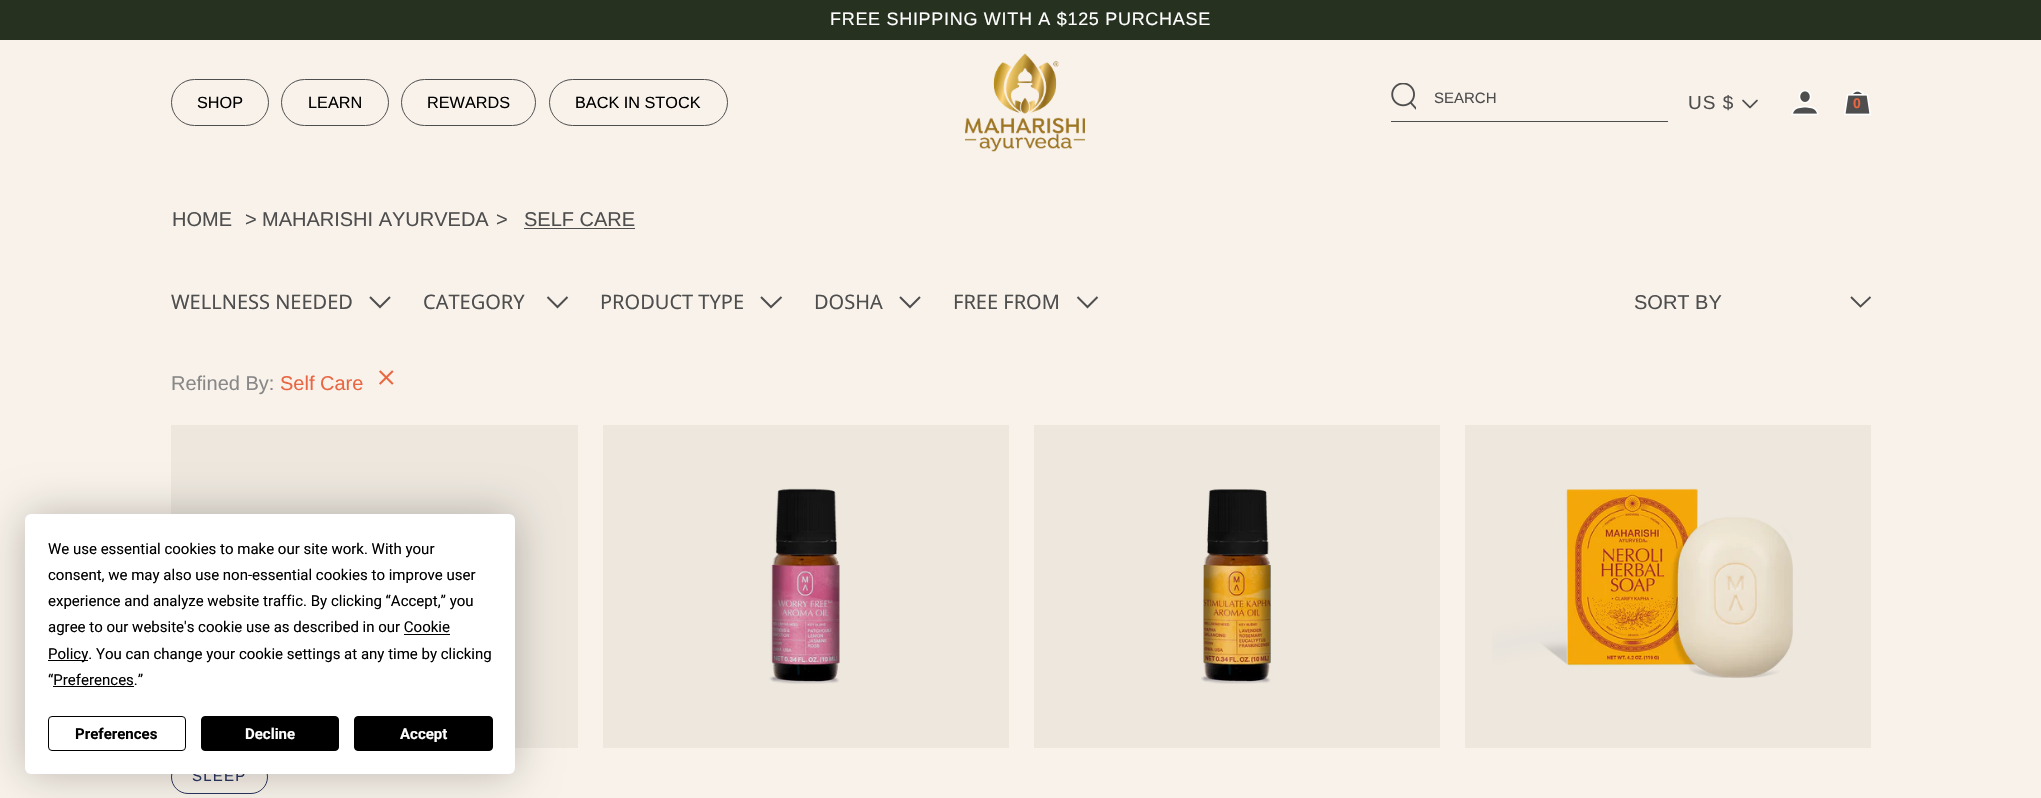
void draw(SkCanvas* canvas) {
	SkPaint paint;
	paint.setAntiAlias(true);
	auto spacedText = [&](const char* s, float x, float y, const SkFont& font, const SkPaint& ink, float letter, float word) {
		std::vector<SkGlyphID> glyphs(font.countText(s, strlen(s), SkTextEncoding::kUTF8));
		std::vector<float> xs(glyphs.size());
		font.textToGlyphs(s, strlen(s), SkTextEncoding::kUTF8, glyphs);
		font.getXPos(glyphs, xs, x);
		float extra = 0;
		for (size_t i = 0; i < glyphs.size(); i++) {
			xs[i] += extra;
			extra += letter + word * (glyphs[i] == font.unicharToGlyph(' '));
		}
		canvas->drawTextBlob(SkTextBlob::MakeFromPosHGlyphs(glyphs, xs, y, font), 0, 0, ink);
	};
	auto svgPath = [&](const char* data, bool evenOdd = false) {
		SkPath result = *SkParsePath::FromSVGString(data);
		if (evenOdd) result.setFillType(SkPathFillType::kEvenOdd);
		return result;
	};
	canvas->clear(0xfff8f2ea);
	paint.setColor(0xff273120);
	canvas->drawRect(SkRect::MakeXYWH(0, 0, 2041, 40), paint);
	SkFont f1(fontMgr->matchFamilyStyle("Liberation Sans", SkFontStyle::Normal()), 18);
	f1.setSubpixel(true);
	paint.setColor(0xffffffff);
	spacedText("FREE SHIPPING WITH A $125 PURCHASE", 830, 25, f1, paint, 0.7, 0);
	SkFont f2(fontMgr->matchFamilyStyle("Liberation Sans", SkFontStyle::Normal()), 20);
	f2.setSubpixel(true);
	paint.setColor(0xff4f4e4e);
	canvas->drawString("HOME", 172, 226, f2, paint);
	canvas->drawString(">", 245, 226, f2, paint);
	canvas->drawString("MAHARISHI AYURVEDA", 262, 226, f2, paint);
	canvas->drawString(">", 496, 226, f2, paint);
	canvas->drawString("SELF CARE", 524, 226, f2, paint);
	paint.setColor(0xff4e4e4e);
	canvas->drawRect(SkRect::MakeXYWH(524, 228, 111, 1), paint);
	SkFont f3(fontMgr->matchFamilyStyle("Noto Sans", SkFontStyle::Normal()), 20);
	f3.setSubpixel(true);
	paint.setColor(0xff4f4e4e);
	canvas->drawString("WELLNESS NEEDED", 171, 309, f3, paint);
	paint.setStroke(true);
	paint.setStrokeWidth(2);
	canvas->drawPath(svgPath("M390 297L380 307L370 297"), paint);
	paint.setStroke(false);
	canvas->drawString("CATEGORY", 423, 309, f3, paint);
	paint.setStroke(true);
	canvas->drawPath(svgPath("M567.5 297L557.5 307L547.5 297"), paint);
	paint.setStroke(false);
	canvas->drawString("PRODUCT TYPE", 600, 309, f3, paint);
	paint.setStroke(true);
	canvas->drawPath(svgPath("M781.5 297L771 307L761 297"), paint);
	paint.setStroke(false);
	canvas->drawString("DOSHA", 814, 309, f3, paint);
	paint.setStroke(true);
	canvas->drawPath(svgPath("M920 297L910 307L900 297"), paint);
	paint.setStroke(false);
	canvas->drawString("FREE FROM", 953, 309, f3, paint);
	paint.setStroke(true);
	canvas->drawPath(svgPath("M1097.5 297L1087.5 307L1077.5 297"), paint);
	paint.setStrokeWidth(1.9);
	canvas->drawPath(svgPath("M1870.5 297L1860.5 306.5L1851 297"), paint);
	paint.setStroke(false);
	canvas->drawString("SORT BY", 1634, 309, f2, paint);
	paint.setColor(0xff888888);
	canvas->drawString("Refined By:", 171, 390, f2, paint);
	paint.setColor(0xffea6642);
	canvas->drawString("Self Care", 280, 390, f2, paint);
	canvas->drawImageRect(SkImages::DeferredFromEncodedData(SkData::MakeFromFileName("img1.png")), SkRect::MakeXYWH(379, 370, 15, 15), SkSamplingOptions());
	paint.setColor(0xffede7de);
	canvas->drawRect(SkRect::MakeXYWH(603, 425, 406, 323), paint);
	canvas->drawImageRect(SkImages::DeferredFromEncodedData(SkData::MakeFromFileName("img2.png")), SkRect::MakeXYWH(769, 488, 71, 196), SkSamplingOptions());
	canvas->drawRect(SkRect::MakeXYWH(1034, 425, 406, 323), paint);
	canvas->drawImageRect(SkImages::DeferredFromEncodedData(SkData::MakeFromFileName("img3.png")), SkRect::MakeXYWH(1201, 489, 70, 195), SkSamplingOptions());
	canvas->drawRect(SkRect::MakeXYWH(1465, 425, 406, 323), paint);
	canvas->drawImageRect(SkImages::DeferredFromEncodedData(SkData::MakeFromFileName("img4.png")), SkRect::MakeXYWH(1492, 488, 301, 190), SkSamplingOptions());
	canvas->drawRect(SkRect::MakeXYWH(171, 425, 407, 323), paint);
	paint.setStroke(true);
	paint.setStrokeWidth(1);
	paint.setColor(0xff293660);
	canvas->drawRoundRect(SkRect::MakeXYWH(171.5, 760.5, 96, 33), 16.5, 16.5, paint);
	SkFont f4(fontMgr->matchFamilyStyle("Liberation Sans", SkFontStyle::Normal()), 15);
	f4.setSubpixel(true);
	paint.setStroke(false);
	spacedText("SLEEP", 192, 781, f4, paint, 1.25, 0);
	paint.setStroke(true);
	paint.setColor(0xff4f4e4e);
	canvas->drawRoundRect(SkRect::MakeXYWH(171.5, 79.5, 97, 46), 23, 23, paint);
	SkFont f5(fontMgr->matchFamilyStyle("Liberation Sans", SkFontStyle::Normal()), 16.25);
	f5.setSubpixel(true);
	paint.setStroke(false);
	paint.setColor(0xff000000);
	canvas->drawString("SHOP", 197, 108, f5, paint);
	paint.setStroke(true);
	paint.setColor(0xff4f4e4e);
	canvas->drawRoundRect(SkRect::MakeXYWH(281.5, 79.5, 107, 46), 23, 23, paint);
	paint.setStroke(false);
	paint.setColor(0xff000000);
	canvas->drawString("LEARN", 308, 108, f5, paint);
	paint.setStroke(true);
	paint.setColor(0xff4f4e4e);
	canvas->drawRoundRect(SkRect::MakeXYWH(401.5, 79.5, 134, 46), 23, 23, paint);
	paint.setStroke(false);
	paint.setColor(0xff000000);
	canvas->drawString("REWARDS", 427, 108, f5, paint);
	paint.setStroke(true);
	paint.setColor(0xff4f4e4e);
	canvas->drawRoundRect(SkRect::MakeXYWH(549.5, 79.5, 178, 46), 23, 23, paint);
	paint.setStroke(false);
	paint.setColor(0xff000000);
	canvas->drawString("BACK IN STOCK", 575, 108, f5, paint);
	canvas->drawImageRect(SkImages::DeferredFromEncodedData(SkData::MakeFromFileName("img5.png")), SkRect::MakeXYWH(965, 53, 120, 99), SkSamplingOptions());
	paint.setColor(0xff4f4e4e);
	canvas->drawRect(SkRect::MakeXYWH(1391, 121, 277, 1), paint);
	canvas->drawImageRect(SkImages::DeferredFromEncodedData(SkData::MakeFromFileName("img6.png")), SkRect::MakeXYWH(1391, 83, 25, 27), SkSamplingOptions());
	canvas->drawString("SEARCH", 1434, 103, f4, paint);
	SkFont f6(fontMgr->matchFamilyStyle("Liberation Sans", SkFontStyle::Normal()), 19);
	f6.setSubpixel(true);
	spacedText("US $", 1688, 109, f6, paint, 1, 0);
	canvas->drawImageRect(SkImages::DeferredFromEncodedData(SkData::MakeFromFileName("img7.png")), SkRect::MakeXYWH(1742, 99, 16, 10), SkSamplingOptions());
	canvas->drawImageRect(SkImages::DeferredFromEncodedData(SkData::MakeFromFileName("img8.png")), SkRect::MakeXYWH(1791, 90, 28, 26), SkSamplingOptions());
	canvas->drawImageRect(SkImages::DeferredFromEncodedData(SkData::MakeFromFileName("img9.png")), SkRect::MakeXYWH(1844, 90, 27, 26), SkSamplingOptions());
	SkFont f7(fontMgr->matchFamilyStyle("Liberation Sans", SkFontStyle::Bold()), 14);
	f7.setSubpixel(true);
	paint.setColor(0xffea6642);
	canvas->drawString("0", 1853, 108, f7, paint);
	paint.setColor(0x40000000);
	paint.setMaskFilter(SkMaskFilter::MakeBlur(kNormal_SkBlurStyle, 22));
	canvas->drawRoundRect(SkRect::MakeXYWH(25, 514, 490, 260), 6, 6, paint);
	paint.setMaskFilter(nullptr);
	paint.setColor(0xffffffff);
	canvas->drawRoundRect(SkRect::MakeXYWH(25, 514, 490, 260), 6, 6, paint);
	SkFont f8(fontMgr->matchFamilyStyle("Roboto", SkFontStyle::Normal()), 15);
	f8.setSubpixel(true);
	paint.setColor(0xff000000);
	canvas->drawString("We use essential cookies to make our site work. With your", 48, 554, f8, paint);
	canvas->drawString("consent, we may also use non-essential cookies to improve user", 48, 580, f8, paint);
	canvas->drawString("experience and analyze website traffic. By clicking “Accept,” you", 48, 606, f8, paint);
	canvas->drawString("agree to our website's cookie use as described in our Cookie", 48, 632, f8, paint);
	canvas->drawRect(SkRect::MakeXYWH(48, 660, 40, 1), paint);
	canvas->drawString("Policy. You can change your cookie settings at any time by clicking", 48, 659, f8, paint);
	canvas->drawRect(SkRect::MakeXYWH(404, 634, 46, 1), paint);
	canvas->drawString("“Preferences.”", 48, 685, f8, paint);
	canvas->drawRect(SkRect::MakeXYWH(53, 686, 81, 1), paint);
	paint.setStroke(true);
	canvas->drawRoundRect(SkRect::MakeXYWH(48.5, 716.5, 137, 34), 3.5, 3.5, paint);
	SkFont f9(fontMgr->matchFamilyStyle("Roboto", SkFontStyle::Bold()), 15);
	f9.setSubpixel(true);
	paint.setStroke(false);
	canvas->drawString("Preferences", 75, 739, f9, paint);
	canvas->drawRoundRect(SkRect::MakeXYWH(201.5, 716.5, 137, 34), 3.5, 3.5, paint);
	paint.setStroke(true);
	canvas->drawRoundRect(SkRect::MakeXYWH(201.5, 716.5, 137, 34), 3.5, 3.5, paint);
	paint.setStroke(false);
	paint.setColor(0xffffffff);
	canvas->drawString("Decline", 245, 739, f9, paint);
	paint.setColor(0xff000000);
	canvas->drawRoundRect(SkRect::MakeXYWH(354.5, 716.5, 138, 34), 3.5, 3.5, paint);
	paint.setStroke(true);
	canvas->drawRoundRect(SkRect::MakeXYWH(354.5, 716.5, 138, 34), 3.5, 3.5, paint);
	paint.setStroke(false);
	paint.setColor(0xffffffff);
	canvas->drawString("Accept", 400, 739, f9, paint);
}
